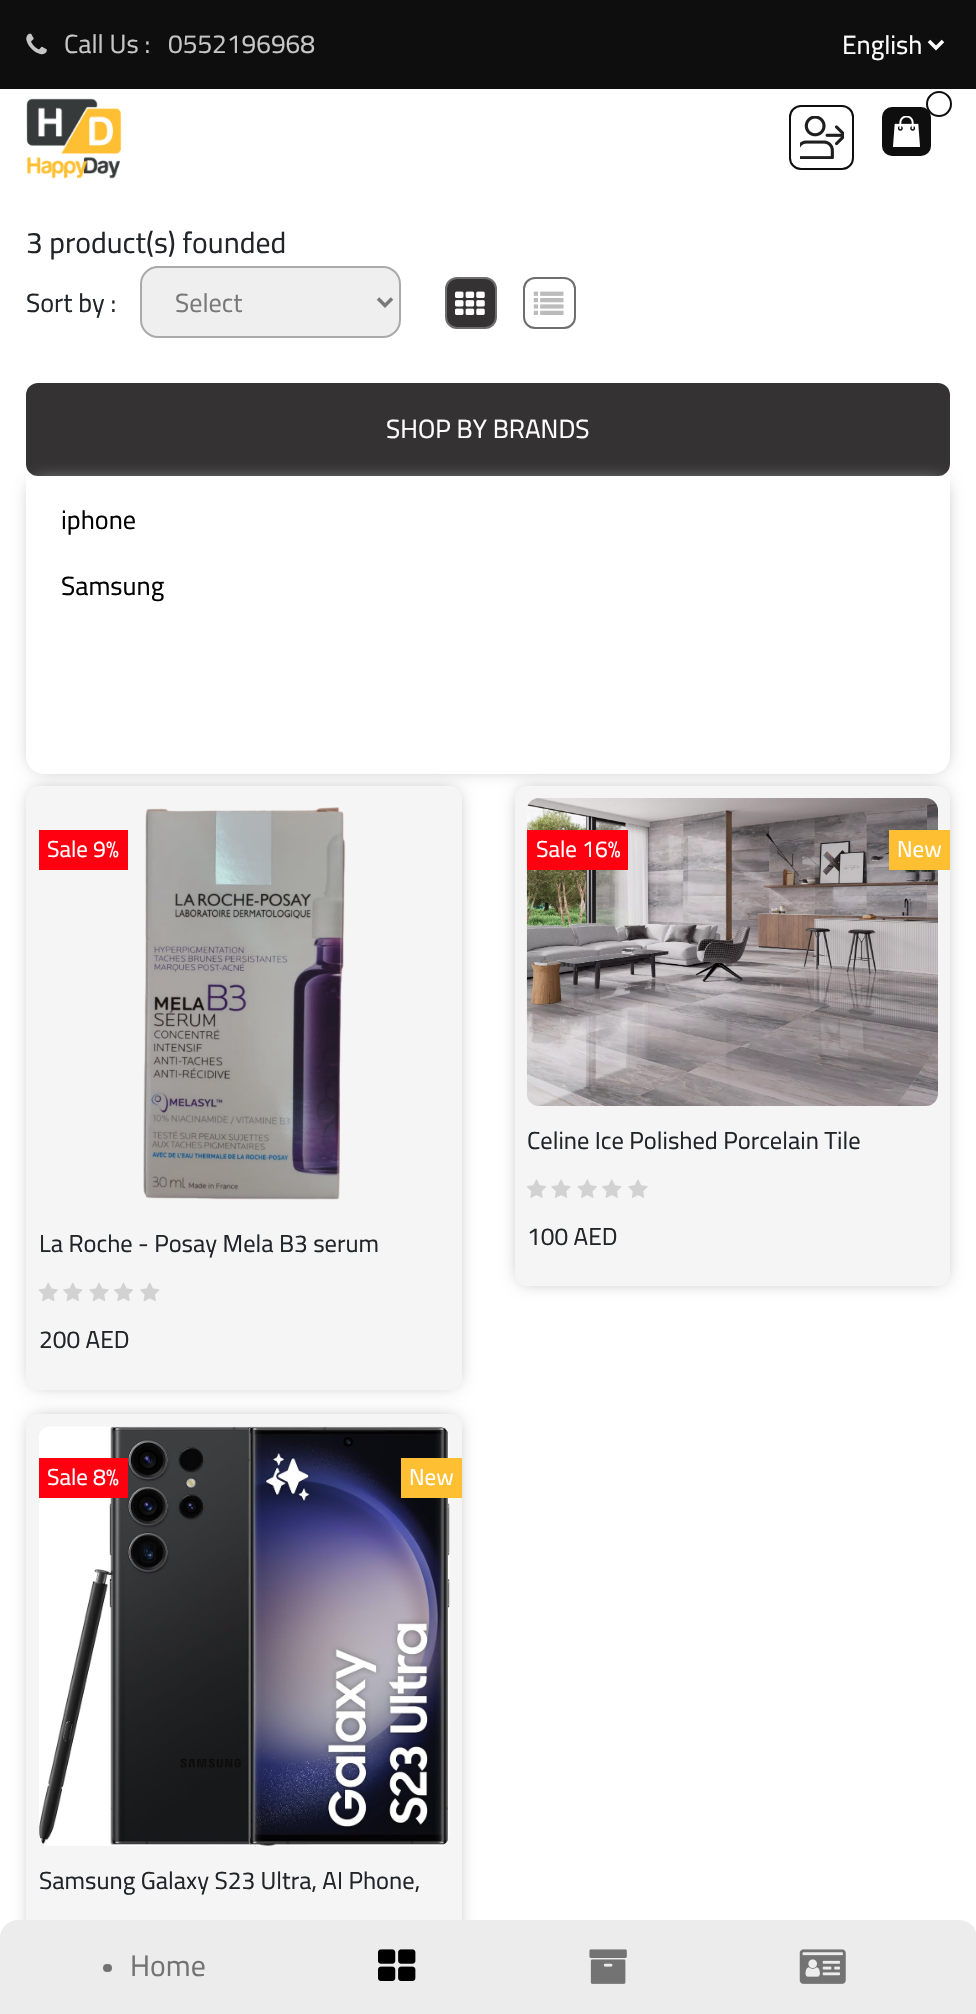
void draw(SkCanvas* canvas) {
	SkPaint paint;
	paint.setAntiAlias(true);
	auto svgPath = [&](const char* data, bool evenOdd = false) {
		SkPath result = *SkParsePath::FromSVGString(data);
		if (evenOdd) result.setFillType(SkPathFillType::kEvenOdd);
		return result;
	};
	canvas->clear(0xffffffff);
	paint.setColor(0xff0e0e0e);
	canvas->drawRect(SkRect::MakeXYWH(0, 0, 976, 89), paint);
	canvas->drawImageRect(SkImages::DeferredFromEncodedData(SkData::MakeFromFileName("img1.png")), SkRect::MakeXYWH(26, 33, 21, 22), SkSamplingOptions());
	SkFont f1(fontMgr->matchFamilyStyle("Cairo", SkFontStyle::Normal()), 26.25);
	f1.setSubpixel(true);
	paint.setColor(0xffc6c6c6);
	canvas->drawString("Call Us :", 64, 53, f1, paint);
	canvas->drawString("0552196968", 168, 53, f1, paint);
	paint.setStroke(true);
	paint.setStrokeWidth(3.5);
	paint.setColor(0xffffffff);
	canvas->drawPath(svgPath("M929 41L936 48L943 41"), paint);
	paint.setStroke(false);
	canvas->drawString("English", 842, 54, f1, paint);
	canvas->drawImageRect(SkImages::DeferredFromEncodedData(SkData::MakeFromFileName("img2.png")), SkRect::MakeXYWH(26, 98, 96, 81), SkSamplingOptions());
	paint.setStroke(true);
	paint.setStrokeWidth(2);
	paint.setColor(0xff0e0e0e);
	canvas->drawRoundRect(SkRect::MakeXYWH(790, 106, 63, 63), 11, 11, paint);
	canvas->drawImageRect(SkImages::DeferredFromEncodedData(SkData::MakeFromFileName("img3.png")), SkRect::MakeXYWH(800, 116, 44, 43), SkSamplingOptions());
	paint.setStroke(false);
	canvas->drawRoundRect(SkRect::MakeXYWH(881, 106, 51, 51), 11, 11, paint);
	paint.setStroke(true);
	paint.setColor(0xffffffff);
	canvas->drawRoundRect(SkRect::MakeXYWH(881, 106, 51, 51), 11, 11, paint);
	paint.setColor(0xff0e0e0e);
	canvas->drawCircle(939, 104, 12, paint);
	canvas->drawImageRect(SkImages::DeferredFromEncodedData(SkData::MakeFromFileName("img4.png")), SkRect::MakeXYWH(893, 116, 27, 31), SkSamplingOptions());
	SkFont f2(fontMgr->matchFamilyStyle("Cairo", SkFontStyle::Normal()), 29.75);
	f2.setSubpixel(true);
	paint.setStroke(false);
	paint.setColor(0xff212529);
	canvas->drawString("3 product(s) founded", 26, 253, f2, paint);
	canvas->drawString("Sort by :", 26, 312, f1, paint);
	paint.setColor(0xffefefef);
	canvas->drawRoundRect(SkRect::MakeXYWH(141, 267, 259, 70), 17, 17, paint);
	paint.setStroke(true);
	paint.setColor(0xffaaaaaa);
	canvas->drawRoundRect(SkRect::MakeXYWH(141, 267, 259, 70), 17, 17, paint);
	paint.setStrokeWidth(3.5);
	paint.setColor(0xff797979);
	canvas->drawPath(svgPath("M378 298.5L385 305.5L392 298.5"), paint);
	paint.setStroke(false);
	canvas->drawString("Select", 175, 312, f1, paint);
	paint.setColor(0xff343232);
	canvas->drawRoundRect(SkRect::MakeXYWH(446, 278, 50, 50), 11, 11, paint);
	paint.setStroke(true);
	paint.setStrokeWidth(2);
	paint.setColor(0xff6f6d6d);
	canvas->drawRoundRect(SkRect::MakeXYWH(446, 278, 50, 50), 11, 11, paint);
	canvas->drawImageRect(SkImages::DeferredFromEncodedData(SkData::MakeFromFileName("img5.png")), SkRect::MakeXYWH(455, 291, 30, 24), SkSamplingOptions());
	canvas->drawRoundRect(SkRect::MakeXYWH(524, 278, 51, 50), 11, 11, paint);
	canvas->drawImageRect(SkImages::DeferredFromEncodedData(SkData::MakeFromFileName("img6.png")), SkRect::MakeXYWH(533, 291, 31, 24), SkSamplingOptions());
	paint.setStroke(false);
	paint.setColor(0xff343232);
	canvas->drawRoundRect(SkRect::MakeXYWH(26, 383, 924, 93), 12, 12, paint);
	paint.setColor(0xffffffff);
	canvas->drawString("SHOP BY BRANDS", 386, 438, f1, paint);
	canvas->save();
	canvas->clipPath(svgPath("M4 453H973V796H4ZM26 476H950V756C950 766 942 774 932 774H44C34 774 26 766 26 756Z", true), true);
	paint.setColor(0xffaaaaaa);
	paint.setMaskFilter(SkMaskFilter::MakeBlur(kNormal_SkBlurStyle, 9));
	canvas->drawRoundRect(SkRect::MakeXYWH(32, 481, 913, 287), 12, 12, paint);
	paint.setMaskFilter(nullptr);
	canvas->restore();
	paint.setColor(0xff000000);
	canvas->drawString("iphone", 61, 529, f1, paint);
	canvas->drawString("Samsung", 61, 595, f1, paint);
	paint.setColor(0xffaaaaaa);
	paint.setMaskFilter(SkMaskFilter::MakeBlur(kNormal_SkBlurStyle, 9));
	canvas->drawRoundRect(SkRect::MakeXYWH(32, 791, 425, 593), 7, 7, paint);
	paint.setMaskFilter(nullptr);
	paint.setColor(0xfff5f5f5);
	canvas->drawRoundRect(SkRect::MakeXYWH(26, 786, 436, 604), 12, 12, paint);
	paint.setColor(0xffff0011);
	canvas->drawRect(SkRect::MakeXYWH(39, 830, 89, 40), paint);
	SkFont f3(fontMgr->matchFamilyStyle("Cairo", SkFontStyle::Normal()), 23);
	f3.setSubpixel(true);
	paint.setColor(0xffffffff);
	canvas->drawString("Sale 9%", 47, 857, f3, paint);
	canvas->drawImageRect(SkImages::DeferredFromEncodedData(SkData::MakeFromFileName("img7.png")), SkRect::MakeXYWH(143, 807, 203, 393), SkSamplingOptions());
	SkFont f4(fontMgr->matchFamilyStyle("Cairo", SkFontStyle::Normal()), 24.5);
	f4.setSubpixel(true);
	paint.setColor(0xff212529);
	canvas->drawString("La Roche - Posay Mela B3 serum", 39, 1252, f4, paint);
	canvas->drawImageRect(SkImages::DeferredFromEncodedData(SkData::MakeFromFileName("img8.png")), SkRect::MakeXYWH(38, 1282, 20, 20), SkSamplingOptions());
	canvas->drawImageRect(SkImages::DeferredFromEncodedData(SkData::MakeFromFileName("img9.png")), SkRect::MakeXYWH(63, 1282, 20, 20), SkSamplingOptions());
	canvas->drawImageRect(SkImages::DeferredFromEncodedData(SkData::MakeFromFileName("img10.png")), SkRect::MakeXYWH(89, 1282, 20, 20), SkSamplingOptions());
	canvas->drawImageRect(SkImages::DeferredFromEncodedData(SkData::MakeFromFileName("img11.png")), SkRect::MakeXYWH(114, 1282, 19, 19), SkSamplingOptions());
	canvas->drawImageRect(SkImages::DeferredFromEncodedData(SkData::MakeFromFileName("img9.png")), SkRect::MakeXYWH(140, 1282, 20, 20), SkSamplingOptions());
	canvas->drawString("200 AED", 39, 1348, f4, paint);
	paint.setColor(0xffaaaaaa);
	paint.setMaskFilter(SkMaskFilter::MakeBlur(kNormal_SkBlurStyle, 9));
	canvas->drawRoundRect(SkRect::MakeXYWH(520, 791, 425, 490), 7, 7, paint);
	paint.setMaskFilter(nullptr);
	paint.setColor(0xfff5f5f5);
	canvas->drawRoundRect(SkRect::MakeXYWH(515, 786, 435, 500), 12, 12, paint);
	canvas->drawImageRect(SkImages::DeferredFromEncodedData(SkData::MakeFromFileName("img12.png")), SkRect::MakeXYWH(526, 798, 412, 308), SkSamplingOptions());
	paint.setColor(0xffff0011);
	canvas->drawRect(SkRect::MakeXYWH(527, 830, 101, 40), paint);
	paint.setColor(0xffffffff);
	canvas->drawString("Sale 16%", 536, 857, f3, paint);
	paint.setColor(0xffffbf32);
	canvas->drawRect(SkRect::MakeXYWH(889, 830, 61, 40), paint);
	paint.setColor(0xffffffff);
	canvas->drawString("New", 897, 857, f3, paint);
	paint.setColor(0xff212529);
	canvas->drawString("Celine Ice Polished Porcelain Tile", 527, 1149, f4, paint);
	canvas->drawImageRect(SkImages::DeferredFromEncodedData(SkData::MakeFromFileName("img13.png")), SkRect::MakeXYWH(526, 1179, 21, 19), SkSamplingOptions());
	canvas->drawImageRect(SkImages::DeferredFromEncodedData(SkData::MakeFromFileName("img14.png")), SkRect::MakeXYWH(551, 1179, 20, 19), SkSamplingOptions());
	canvas->drawImageRect(SkImages::DeferredFromEncodedData(SkData::MakeFromFileName("img15.png")), SkRect::MakeXYWH(577, 1179, 20, 19), SkSamplingOptions());
	canvas->drawImageRect(SkImages::DeferredFromEncodedData(SkData::MakeFromFileName("img16.png")), SkRect::MakeXYWH(602, 1179, 20, 19), SkSamplingOptions());
	canvas->drawImageRect(SkImages::DeferredFromEncodedData(SkData::MakeFromFileName("img14.png")), SkRect::MakeXYWH(628, 1179, 20, 19), SkSamplingOptions());
	canvas->drawString("100 AED", 527, 1245, f4, paint);
	paint.setColor(0xffaaaaaa);
	paint.setMaskFilter(SkMaskFilter::MakeBlur(kNormal_SkBlurStyle, 9));
	canvas->drawRoundRect(SkRect::MakeXYWH(32, 1419, 425, 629), 7, 7, paint);
	paint.setMaskFilter(nullptr);
	paint.setColor(0xfff5f5f5);
	canvas->drawRoundRect(SkRect::MakeXYWH(26, 1414, 436, 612), 12, 12, paint);
	canvas->drawImageRect(SkImages::DeferredFromEncodedData(SkData::MakeFromFileName("img17.png")), SkRect::MakeXYWH(39, 1426, 411, 420), SkSamplingOptions());
	paint.setColor(0xffff0011);
	canvas->drawRect(SkRect::MakeXYWH(39, 1458, 89, 40), paint);
	paint.setColor(0xffffffff);
	canvas->drawString("Sale 8%", 47, 1485, f3, paint);
	paint.setColor(0xffffbf32);
	canvas->drawRect(SkRect::MakeXYWH(401, 1458, 61, 40), paint);
	paint.setColor(0xffffffff);
	canvas->drawString("New", 409, 1485, f3, paint);
	paint.setColor(0xff212529);
	canvas->drawString("Samsung Galaxy S23 Ultra, AI Phone,", 39, 1889, f4, paint);
	paint.setColor(0xffececec);
	canvas->drawPath(svgPath("M18 1920H959C969 1920 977 1928 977 1938V2014H0V1938C0 1928 8 1920 18 1920Z"), paint);
	paint.setColor(0xff737373);
	canvas->drawRoundRect(SkRect::MakeXYWH(103, 1964, 9, 8), 4, 4, paint);
	canvas->drawString("Home", 130, 1976, f2, paint);
	canvas->drawImageRect(SkImages::DeferredFromEncodedData(SkData::MakeFromFileName("img18.png")), SkRect::MakeXYWH(378, 1949, 38, 32), SkSamplingOptions());
	canvas->drawImageRect(SkImages::DeferredFromEncodedData(SkData::MakeFromFileName("img19.png")), SkRect::MakeXYWH(589, 1949, 38, 35), SkSamplingOptions());
	canvas->drawImageRect(SkImages::DeferredFromEncodedData(SkData::MakeFromFileName("img20.png")), SkRect::MakeXYWH(799, 1949, 47, 35), SkSamplingOptions());
}
